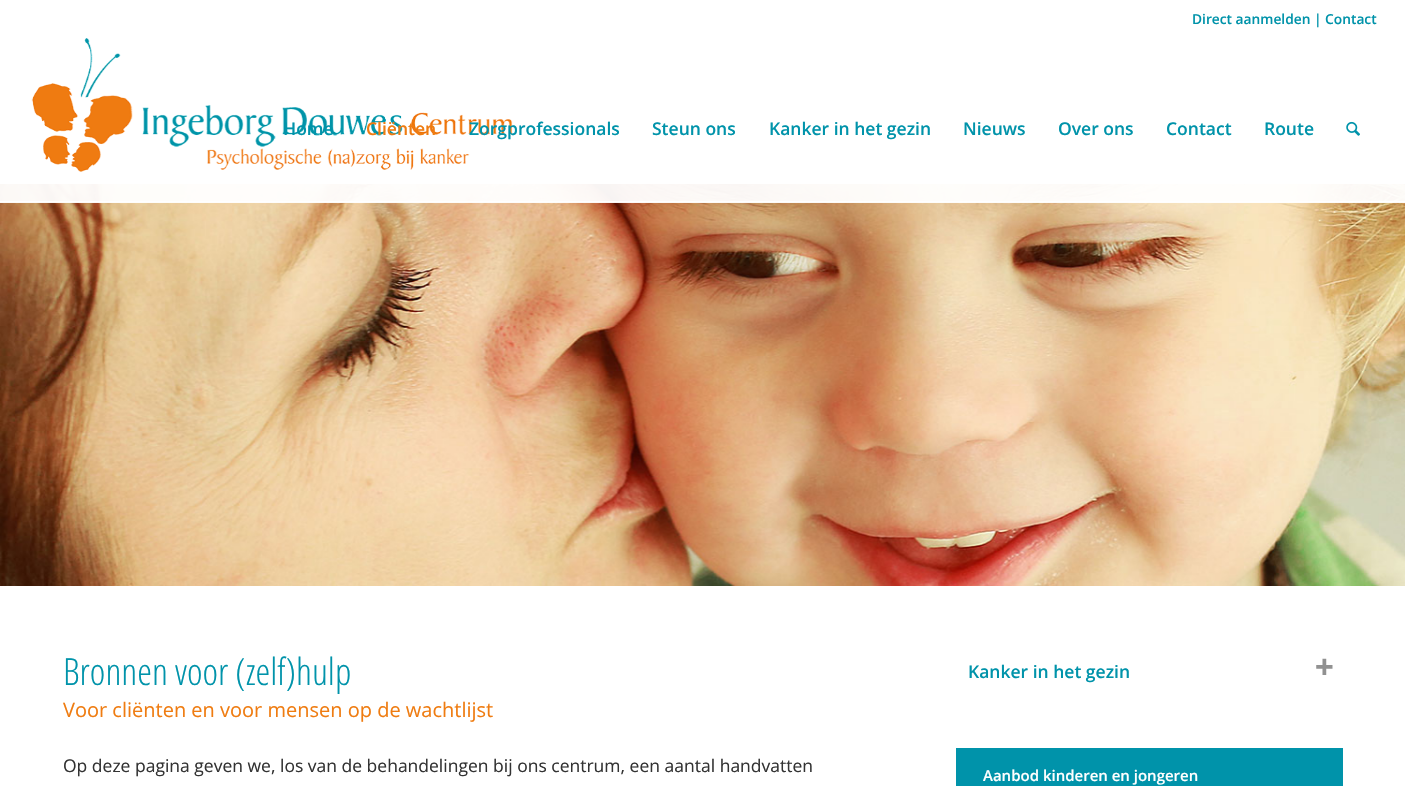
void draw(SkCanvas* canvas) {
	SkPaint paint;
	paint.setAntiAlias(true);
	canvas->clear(0xffffffff);
	SkFont f1(fontMgr->matchFamilyStyle("Open Sans", SkFontStyle(600, SkFontStyle::kNormal_Width, SkFontStyle::kUpright_Slant)), 13.75);
	f1.setSubpixel(true);
	paint.setColor(0xff0093aa);
	canvas->drawString("Direct aanmelden | Contact", 1192, 24, f1, paint);
	canvas->drawImageRect(SkImages::DeferredFromEncodedData(SkData::MakeFromFileName("img3.png")), SkRect::MakeXYWH(0, 184, 1405, 402), SkSamplingOptions());
	paint.setColor(0xf2ffffff);
	canvas->drawRect(SkRect::MakeXYWH(0, 184, 1405, 19), paint);
	paint.setColor(0xffffffff);
	canvas->drawRect(SkRect::MakeXYWH(0, 201, 1405, 1), paint);
	canvas->drawImageRect(SkImages::DeferredFromEncodedData(SkData::MakeFromFileName("img1.png")), SkRect::MakeXYWH(31, 38, 482, 134), SkSamplingOptions());
	SkFont f2(fontMgr->matchFamilyStyle("Open Sans", SkFontStyle(600, SkFontStyle::kNormal_Width, SkFontStyle::kUpright_Slant)), 17.5);
	f2.setSubpixel(true);
	paint.setColor(0xff0093aa);
	canvas->drawString("Home", 283, 135, f2, paint);
	paint.setColor(0xffef7c11);
	canvas->drawString("Cliënten", 366, 135, f2, paint);
	paint.setColor(0xff0093aa);
	canvas->drawString("Zorgprofessionals", 469, 135, f2, paint);
	canvas->drawString("Steun ons", 652, 135, f2, paint);
	canvas->drawString("Kanker in het gezin", 769, 135, f2, paint);
	canvas->drawString("Nieuws", 963, 135, f2, paint);
	canvas->drawString("Over ons", 1058, 135, f2, paint);
	canvas->drawString("Contact", 1166, 135, f2, paint);
	canvas->drawString("Route", 1264, 135, f2, paint);
	canvas->drawImageRect(SkImages::DeferredFromEncodedData(SkData::MakeFromFileName("img2.png")), SkRect::MakeXYWH(1346, 121, 14, 15), SkSamplingOptions());
	SkFont f3(fontMgr->matchFamilyStyle("Open Sans Condensed", SkFontStyle(300, SkFontStyle::kNormal_Width, SkFontStyle::kUpright_Slant)), 37.5);
	f3.setSubpixel(true);
	canvas->drawString("Bronnen voor (zelf)hulp", 63, 685, f3, paint);
	SkFont f4(fontMgr->matchFamilyStyle("Open Sans", SkFontStyle::Normal()), 20);
	f4.setSubpixel(true);
	paint.setColor(0xffef7c11);
	canvas->drawString("Voor cliënten en voor mensen op de wachtlijst", 63, 717, f4, paint);
	SkFont f5(fontMgr->matchFamilyStyle("Open Sans", SkFontStyle::Normal()), 17.5);
	f5.setSubpixel(true);
	paint.setColor(0xff333333);
	canvas->drawString("Op deze pagina geven we, los van de behandelingen bij ons centrum, een aantal handvatten", 63, 772, f5, paint);
	paint.setColor(0xff0093aa);
	canvas->drawString("Kanker in het gezin", 968, 678, f2, paint);
	canvas->drawImageRect(SkImages::DeferredFromEncodedData(SkData::MakeFromFileName("img4.png")), SkRect::MakeXYWH(1316, 658, 17, 17), SkSamplingOptions());
	canvas->drawRect(SkRect::MakeXYWH(956, 748, 387, 38), paint);
	SkFont f6(fontMgr->matchFamilyStyle("Open Sans", SkFontStyle(600, SkFontStyle::kNormal_Width, SkFontStyle::kUpright_Slant)), 15);
	f6.setSubpixel(true);
	paint.setColor(0xffffffff);
	canvas->drawString("Aanbod kinderen en jongeren", 983, 781, f6, paint);
}
